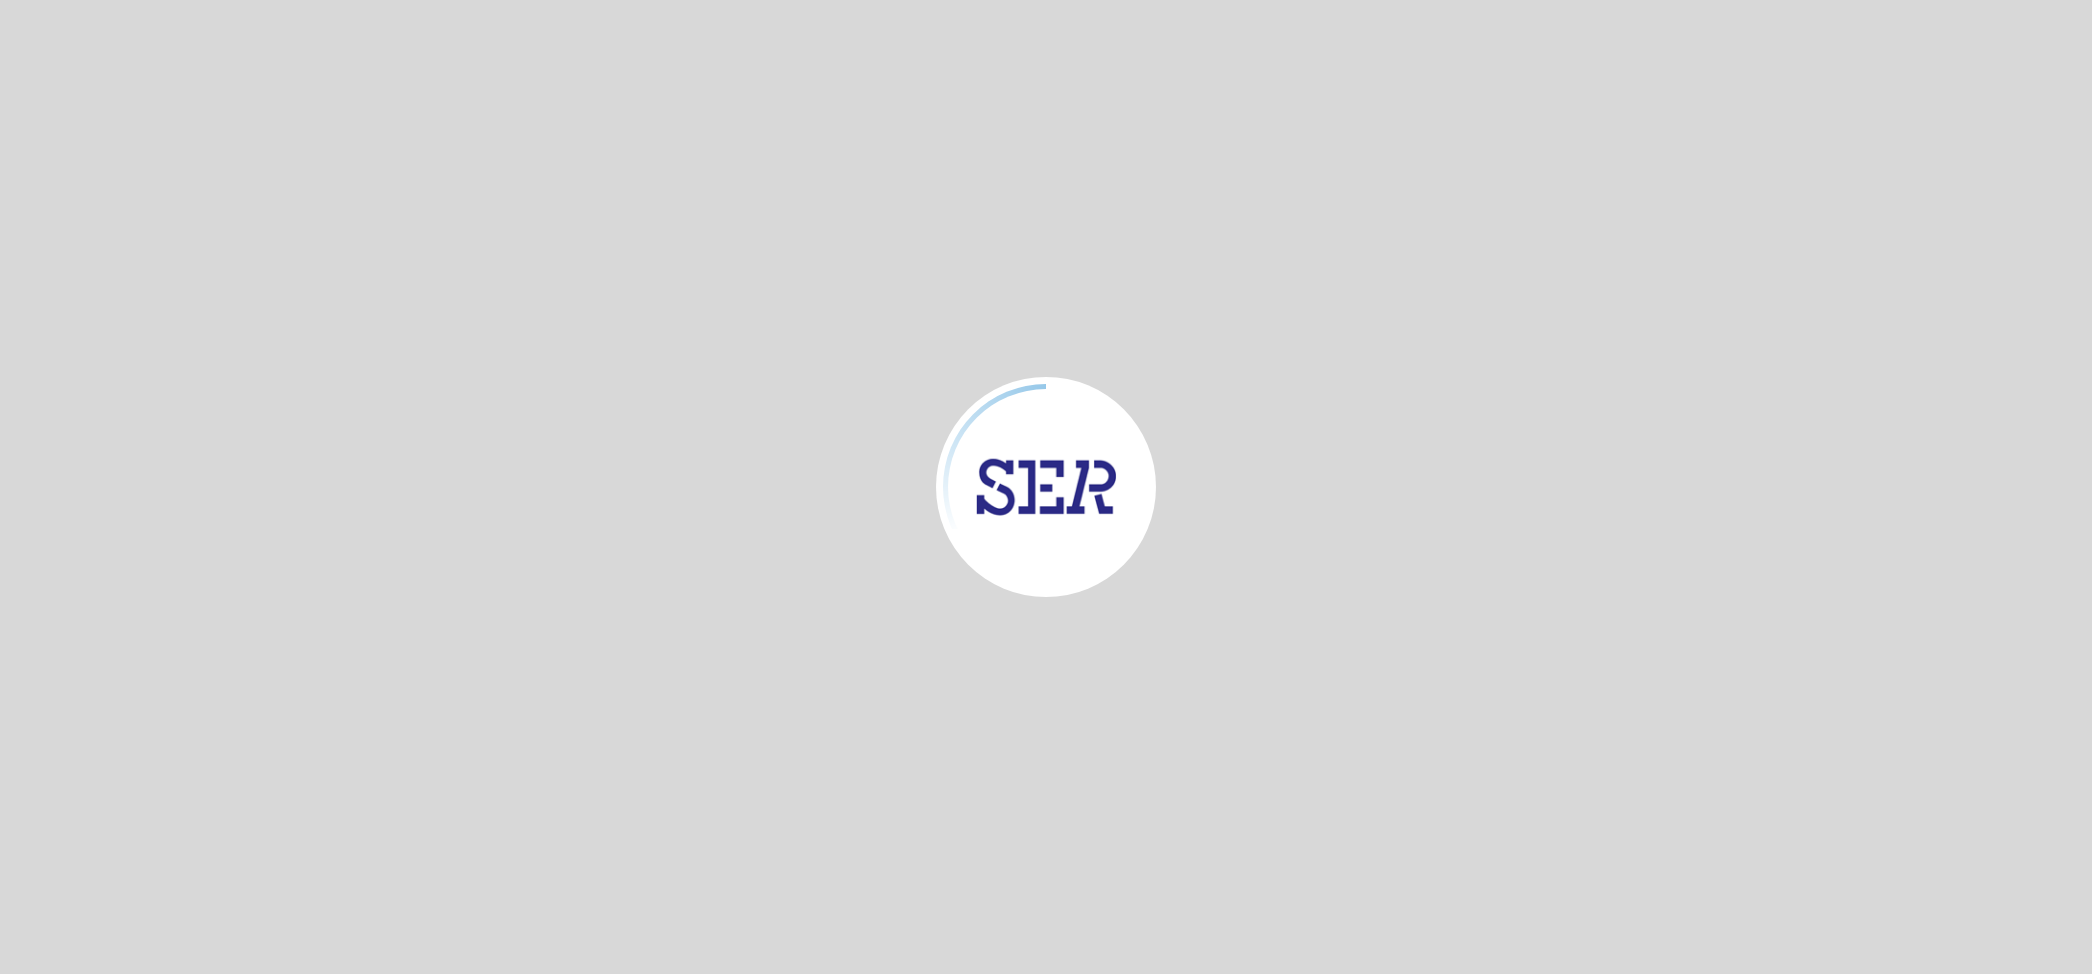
void draw(SkCanvas* canvas) {
	SkPaint paint;
	paint.setAntiAlias(true);
	canvas->clear(0xffd8d8d8);
	paint.setColor(0xffffffff);
	canvas->drawCircle(1046, 487, 110, paint);
	canvas->drawImageRect(SkImages::DeferredFromEncodedData(SkData::MakeFromFileName("img1.png")), SkRect::MakeXYWH(943, 384, 103, 145), SkSamplingOptions());
	canvas->drawCircle(1046, 487, 98, paint);
	canvas->drawImageRect(SkImages::DeferredFromEncodedData(SkData::MakeFromFileName("img2.png")), SkRect::MakeXYWH(976, 458, 141, 58), SkSamplingOptions());
}
